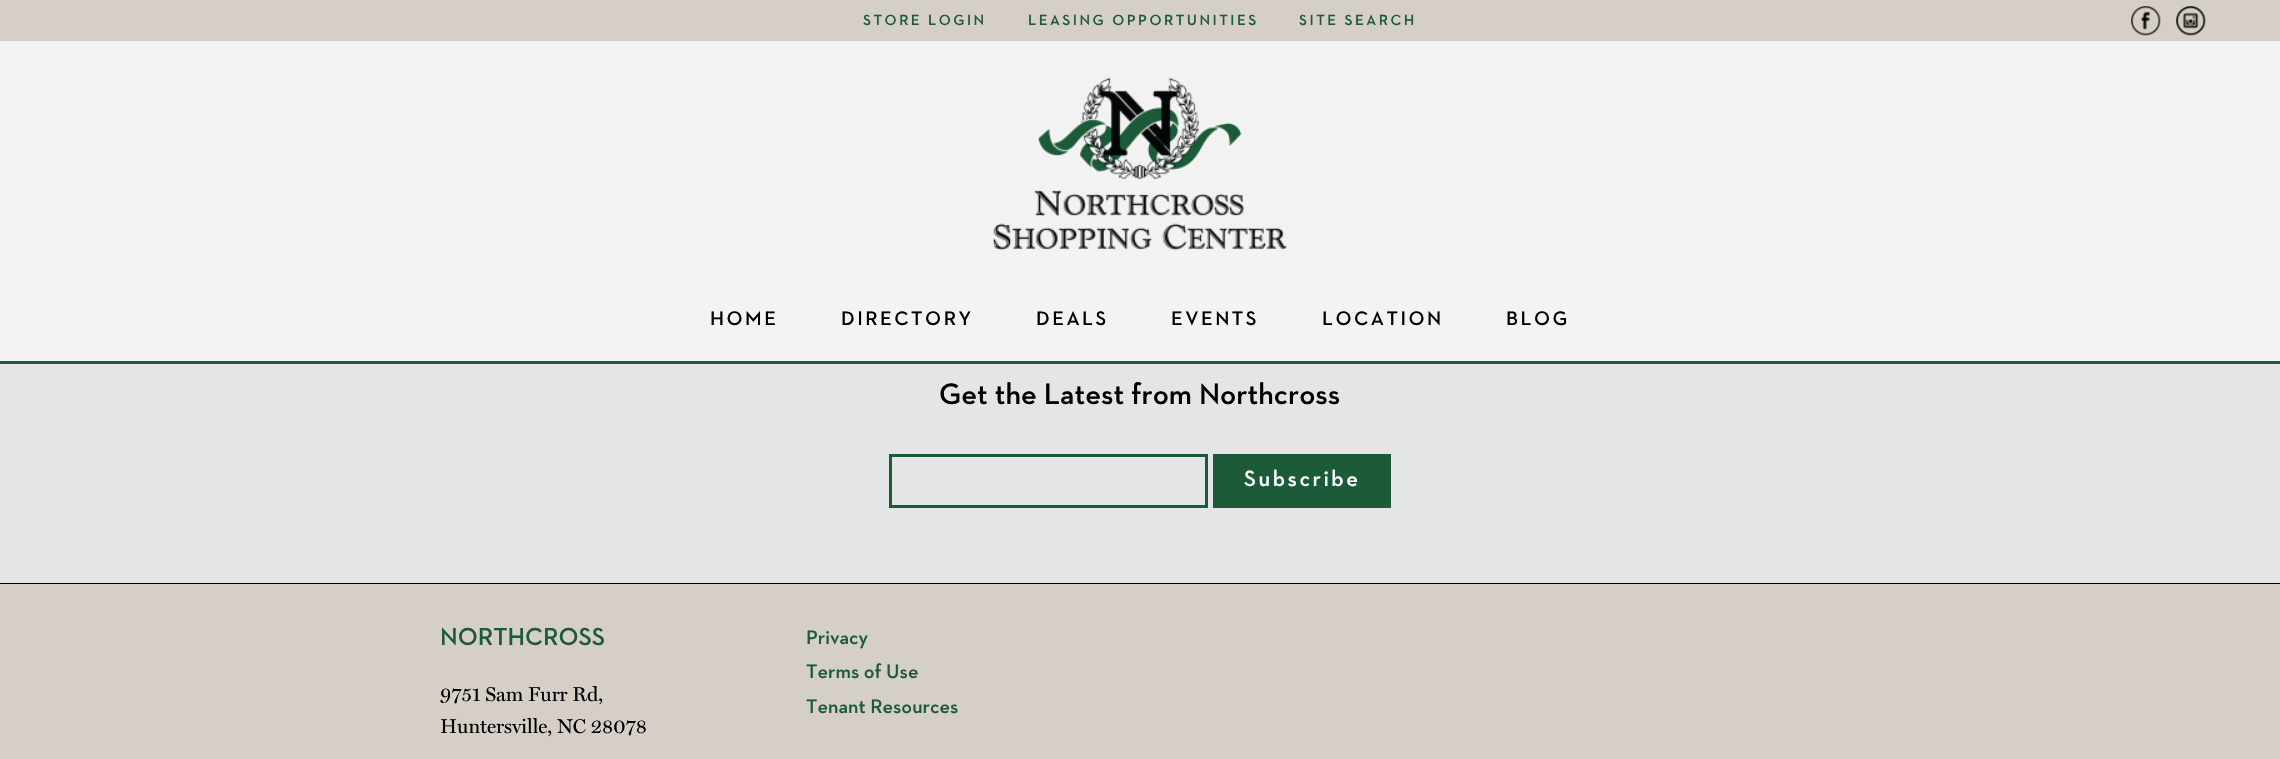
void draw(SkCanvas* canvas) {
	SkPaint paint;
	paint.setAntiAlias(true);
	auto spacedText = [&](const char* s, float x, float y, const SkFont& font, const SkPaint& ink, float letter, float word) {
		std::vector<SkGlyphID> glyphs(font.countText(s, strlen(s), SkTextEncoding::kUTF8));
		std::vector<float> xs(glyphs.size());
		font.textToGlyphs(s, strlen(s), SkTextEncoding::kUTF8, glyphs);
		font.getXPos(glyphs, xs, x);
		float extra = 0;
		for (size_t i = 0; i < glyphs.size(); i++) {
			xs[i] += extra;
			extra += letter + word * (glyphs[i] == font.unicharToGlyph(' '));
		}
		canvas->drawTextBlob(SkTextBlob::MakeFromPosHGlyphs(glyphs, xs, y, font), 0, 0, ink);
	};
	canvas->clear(0xffe4e5e7);
	paint.setColor(0xfff3f3f3);
	canvas->drawRect(SkRect::MakeXYWH(0, 41, 2280, 320), paint);
	paint.setColor(0xff1b5b38);
	canvas->drawRect(SkRect::MakeXYWH(0, 361, 2280, 3), paint);
	paint.setColor(0xffd6cfc7);
	canvas->drawRect(SkRect::MakeXYWH(0, 0, 2280, 41), paint);
	SkFont f1(fontMgr->matchFamilyStyle("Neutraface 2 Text", SkFontStyle(600, SkFontStyle::kNormal_Width, SkFontStyle::kUpright_Slant)), 15);
	f1.setSubpixel(true);
	paint.setColor(0xff1b5b38);
	spacedText("STORE LOGIN", 863, 25, f1, paint, 2.5, 0);
	spacedText("LEASING OPPORTUNITIES", 1028, 25, f1, paint, 2.5, 0);
	spacedText("SITE SEARCH", 1299, 25, f1, paint, 2.5, 0);
	canvas->drawImageRect(SkImages::DeferredFromEncodedData(SkData::MakeFromFileName("img1.png")), SkRect::MakeXYWH(2131, 6, 30, 30), SkSamplingOptions());
	canvas->drawImageRect(SkImages::DeferredFromEncodedData(SkData::MakeFromFileName("img2.png")), SkRect::MakeXYWH(2176, 6, 30, 30), SkSamplingOptions());
	canvas->drawImageRect(SkImages::DeferredFromEncodedData(SkData::MakeFromFileName("img3.png")), SkRect::MakeXYWH(993, 77, 294, 174), SkSamplingOptions());
	SkFont f2(fontMgr->matchFamilyStyle("Neutraface 2 Text", SkFontStyle(600, SkFontStyle::kNormal_Width, SkFontStyle::kUpright_Slant)), 20);
	f2.setSubpixel(true);
	paint.setColor(0xff000000);
	spacedText("HOME", 710, 325, f2, paint, 2.5, 0);
	spacedText("DIRECTORY", 841, 325, f2, paint, 2.5, 0);
	spacedText("DEALS", 1036, 325, f2, paint, 2.5, 0);
	spacedText("EVENTS", 1171, 325, f2, paint, 2.5, 0);
	spacedText("LOCATION", 1322, 325, f2, paint, 2.5, 0);
	spacedText("BLOG", 1506, 325, f2, paint, 2.5, 0);
	SkFont f3(fontMgr->matchFamilyStyle("Neutraface 2 Text", SkFontStyle(600, SkFontStyle::kNormal_Width, SkFontStyle::kUpright_Slant)), 30);
	f3.setSubpixel(true);
	canvas->drawString("Get the Latest from Northcross", 939, 404, f3, paint);
	paint.setStroke(true);
	paint.setStrokeWidth(3);
	paint.setColor(0xff1b5b38);
	canvas->drawRect(SkRect::MakeXYWH(890.5, 455.5, 316, 51), paint);
	paint.setStroke(false);
	canvas->drawRect(SkRect::MakeXYWH(1213, 454, 178, 54), paint);
	SkFont f4(fontMgr->matchFamilyStyle("Neutraface 2 Text", SkFontStyle(600, SkFontStyle::kNormal_Width, SkFontStyle::kUpright_Slant)), 22.5);
	f4.setSubpixel(true);
	paint.setColor(0xffffffff);
	spacedText("Subscribe", 1244, 486, f4, paint, 2.5, 0);
	paint.setColor(0xffd6cfc7);
	canvas->drawRect(SkRect::MakeXYWH(0, 584, 2280, 175), paint);
	paint.setColor(0xff000000);
	canvas->drawRect(SkRect::MakeXYWH(0, 583, 2280, 1), paint);
	SkFont f5(fontMgr->matchFamilyStyle("Neutraface 2 Text", SkFontStyle(600, SkFontStyle::kNormal_Width, SkFontStyle::kUpright_Slant)), 25);
	f5.setSubpixel(true);
	paint.setColor(0xff1b5b38);
	canvas->drawString("NORTHCROSS", 440, 645, f5, paint);
	SkFont f6(fontMgr->matchFamilyStyle("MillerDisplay", SkFontStyle::Normal()), 20);
	f6.setSubpixel(true);
	paint.setColor(0xff000000);
	canvas->drawString("9751 Sam Furr Rd,", 440, 701, f6, paint);
	canvas->drawString("Huntersville, NC 28078", 440, 733, f6, paint);
	paint.setColor(0xff1b5b38);
	canvas->drawString("Privacy", 806, 644, f2, paint);
	canvas->drawString("Terms of Use", 806, 678, f2, paint);
	canvas->drawString("Tenant Resources", 806, 713, f2, paint);
}
